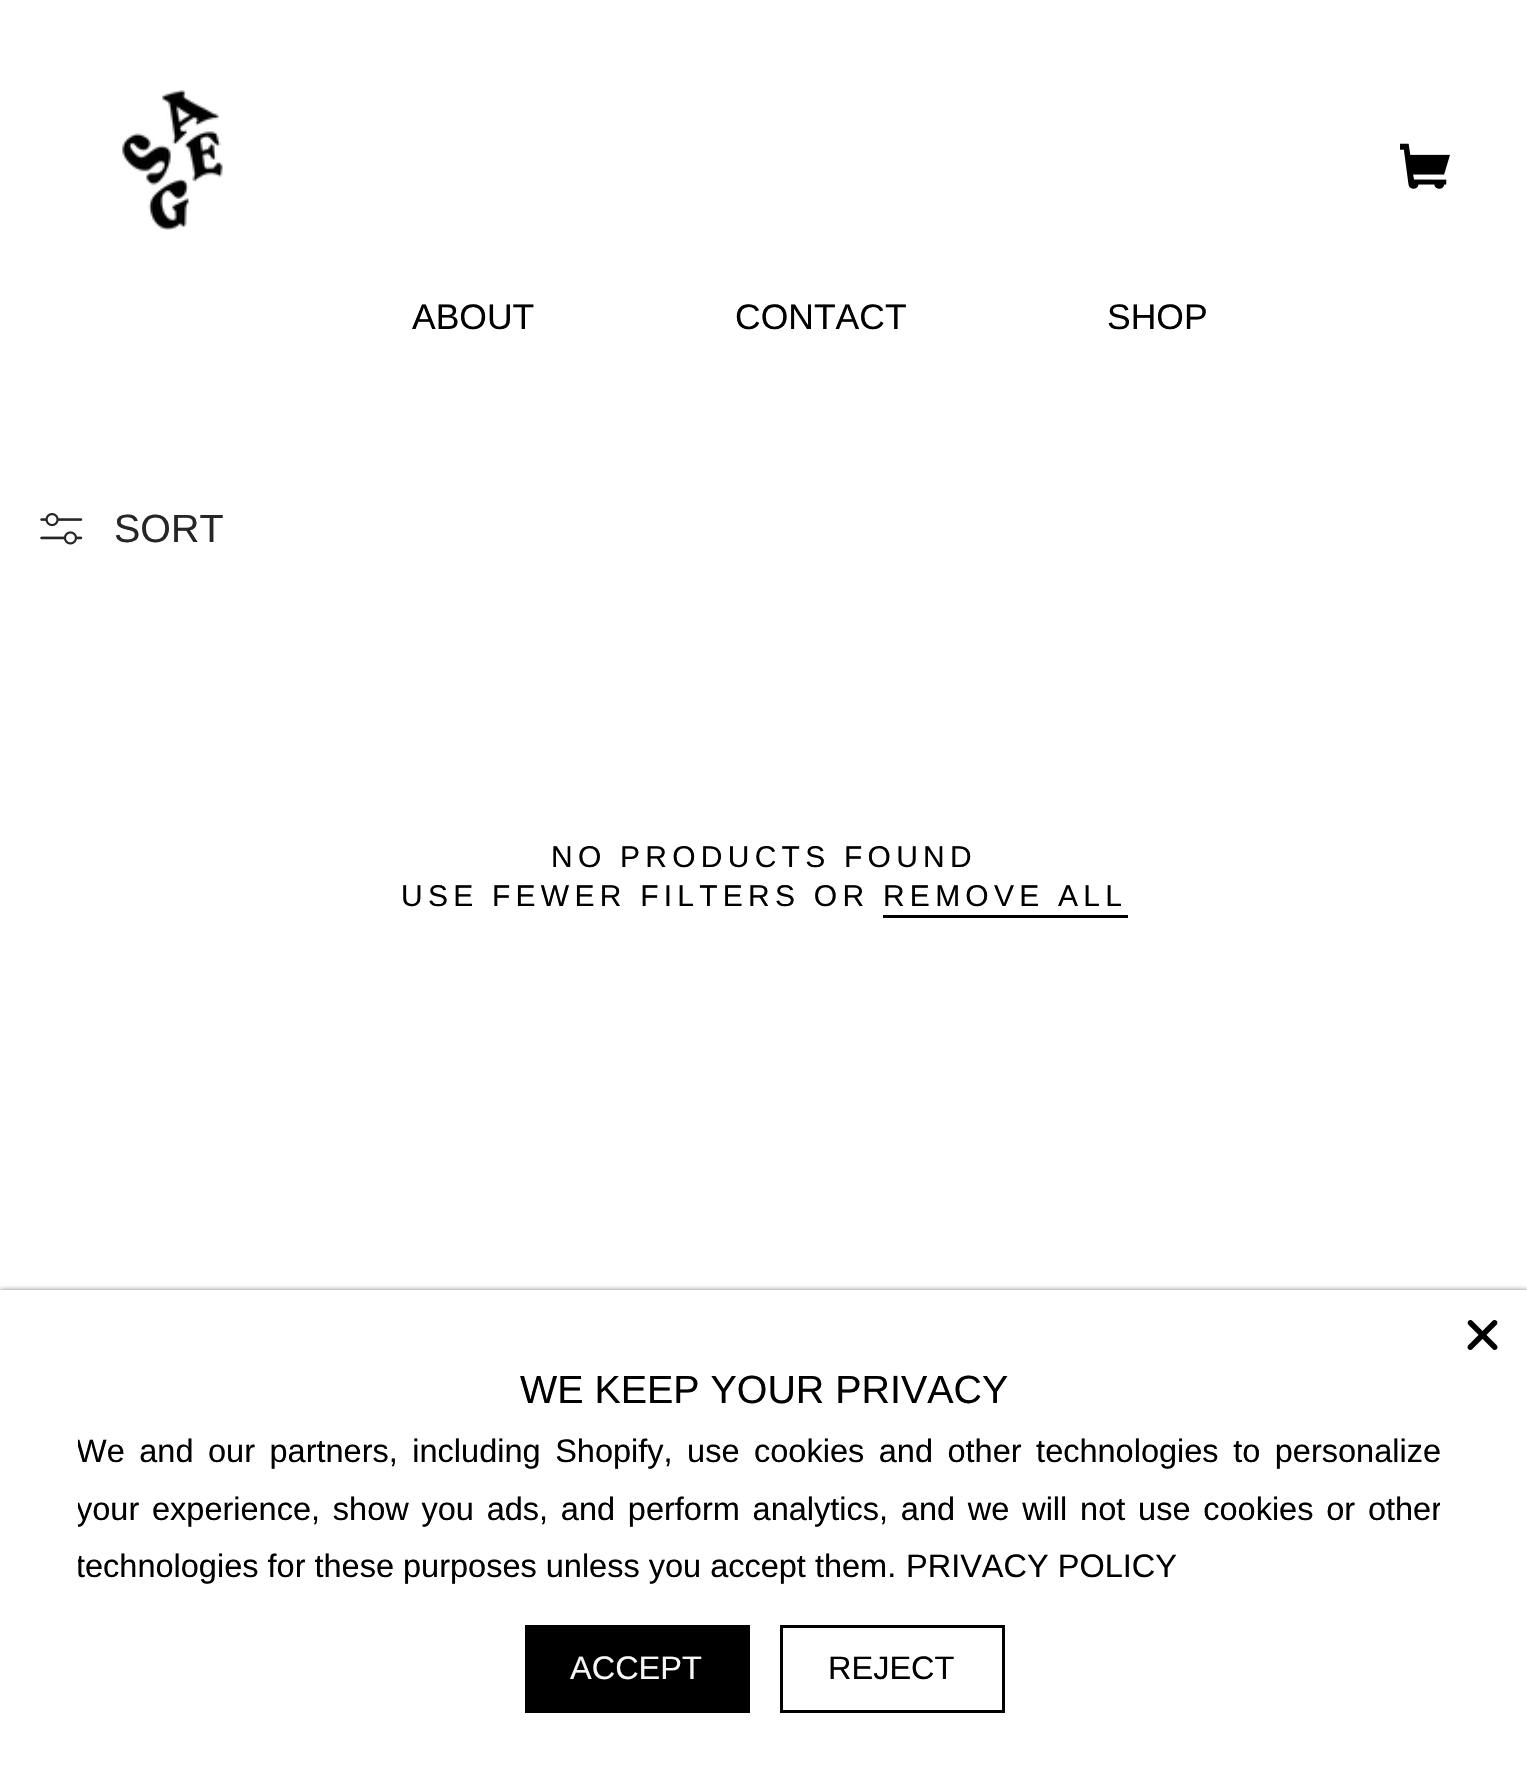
void draw(SkCanvas* canvas) {
	SkPaint paint;
	paint.setAntiAlias(true);
	auto spacedText = [&](const char* s, float x, float y, const SkFont& font, const SkPaint& ink, float letter, float word) {
		std::vector<SkGlyphID> glyphs(font.countText(s, strlen(s), SkTextEncoding::kUTF8));
		std::vector<float> xs(glyphs.size());
		font.textToGlyphs(s, strlen(s), SkTextEncoding::kUTF8, glyphs);
		font.getXPos(glyphs, xs, x);
		float extra = 0;
		for (size_t i = 0; i < glyphs.size(); i++) {
			xs[i] += extra;
			extra += letter + word * (glyphs[i] == font.unicharToGlyph(' '));
		}
		canvas->drawTextBlob(SkTextBlob::MakeFromPosHGlyphs(glyphs, xs, y, font), 0, 0, ink);
	};
	canvas->clear(0xffffffff);
	canvas->drawImageRect(SkImages::DeferredFromEncodedData(SkData::MakeFromFileName("img1.png")), SkRect::MakeXYWH(122, 90, 101, 140), SkSamplingOptions());
	canvas->drawImageRect(SkImages::DeferredFromEncodedData(SkData::MakeFromFileName("img2.png")), SkRect::MakeXYWH(1400, 143, 50, 46), SkSamplingOptions());
	SkFont f1(fontMgr->matchFamilyStyle("Liberation Sans", SkFontStyle::Normal()), 35.5);
	f1.setSubpixel(true);
	paint.setColor(0xff000000);
	canvas->drawString("ABOUT", 412, 329, f1, paint);
	canvas->drawString("CONTACT", 735, 329, f1, paint);
	canvas->drawString("SHOP", 1107, 329, f1, paint);
	canvas->drawImageRect(SkImages::DeferredFromEncodedData(SkData::MakeFromFileName("img3.png")), SkRect::MakeXYWH(40, 513, 43, 32), SkSamplingOptions());
	SkFont f2(fontMgr->matchFamilyStyle("Liberation Sans", SkFontStyle::Normal()), 39.4);
	f2.setSubpixel(true);
	paint.setColor(0xff262626);
	canvas->drawString("SORT", 114, 542, f2, paint);
	SkFont f3(fontMgr->matchFamilyStyle("Liberation Sans", SkFontStyle::Normal()), 30);
	f3.setSubpixel(true);
	paint.setColor(0xff000000);
	spacedText("NO PRODUCTS FOUND", 551, 867, f3, paint, 5.25, 0);
	spacedText("USE FEWER FILTERS OR REMOVE ALL", 401, 906, f3, paint, 5.25, 0);
	canvas->drawRect(SkRect::MakeXYWH(883, 915, 245, 3), paint);
	paint.setColor(0x80000000);
	paint.setMaskFilter(SkMaskFilter::MakeBlur(kNormal_SkBlurStyle, 2.5));
	canvas->drawRect(SkRect::MakeXYWH(0, 1290, 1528, 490), paint);
	paint.setMaskFilter(nullptr);
	paint.setColor(0xffffffff);
	canvas->drawRect(SkRect::MakeXYWH(0, 1290, 1527, 488), paint);
	canvas->drawImageRect(SkImages::DeferredFromEncodedData(SkData::MakeFromFileName("img4.png")), SkRect::MakeXYWH(1467, 1320, 31, 30), SkSamplingOptions());
	paint.setColor(0xff000000);
	canvas->drawString("WE KEEP YOUR PRIVACY", 520, 1403, f2, paint);
	canvas->save();
	canvas->clipRect(SkRect::MakeXYWH(78, 1425, 1362, 173));
	SkFont f4(fontMgr->matchFamilyStyle("Liberation Sans", SkFontStyle::Normal()), 32.5);
	f4.setSubpixel(true);
	spacedText("We and our partners, including Shopify, use cookies and other technologies to personalize", 76, 1462, f4, paint, 0, 5.5);
	spacedText("your experience, show you ads, and perform analytics, and we will not use cookies or other", 76, 1520, f4, paint, 0, 3.75);
	canvas->drawString("technologies for these purposes unless you accept them.", 76, 1577, f4, paint);
	canvas->restore();
	canvas->drawString("PRIVACY POLICY", 906, 1577, f4, paint);
	canvas->drawRect(SkRect::MakeXYWH(525, 1625, 225, 88), paint);
	paint.setColor(0xfff8f8f8);
	canvas->drawString("ACCEPT", 570, 1679, f4, paint);
	paint.setStroke(true);
	paint.setStrokeWidth(3);
	paint.setColor(0xff000000);
	canvas->drawRect(SkRect::MakeXYWH(781.5, 1626.5, 222, 85), paint);
	paint.setStroke(false);
	canvas->drawString("REJECT", 828, 1679, f4, paint);
}
